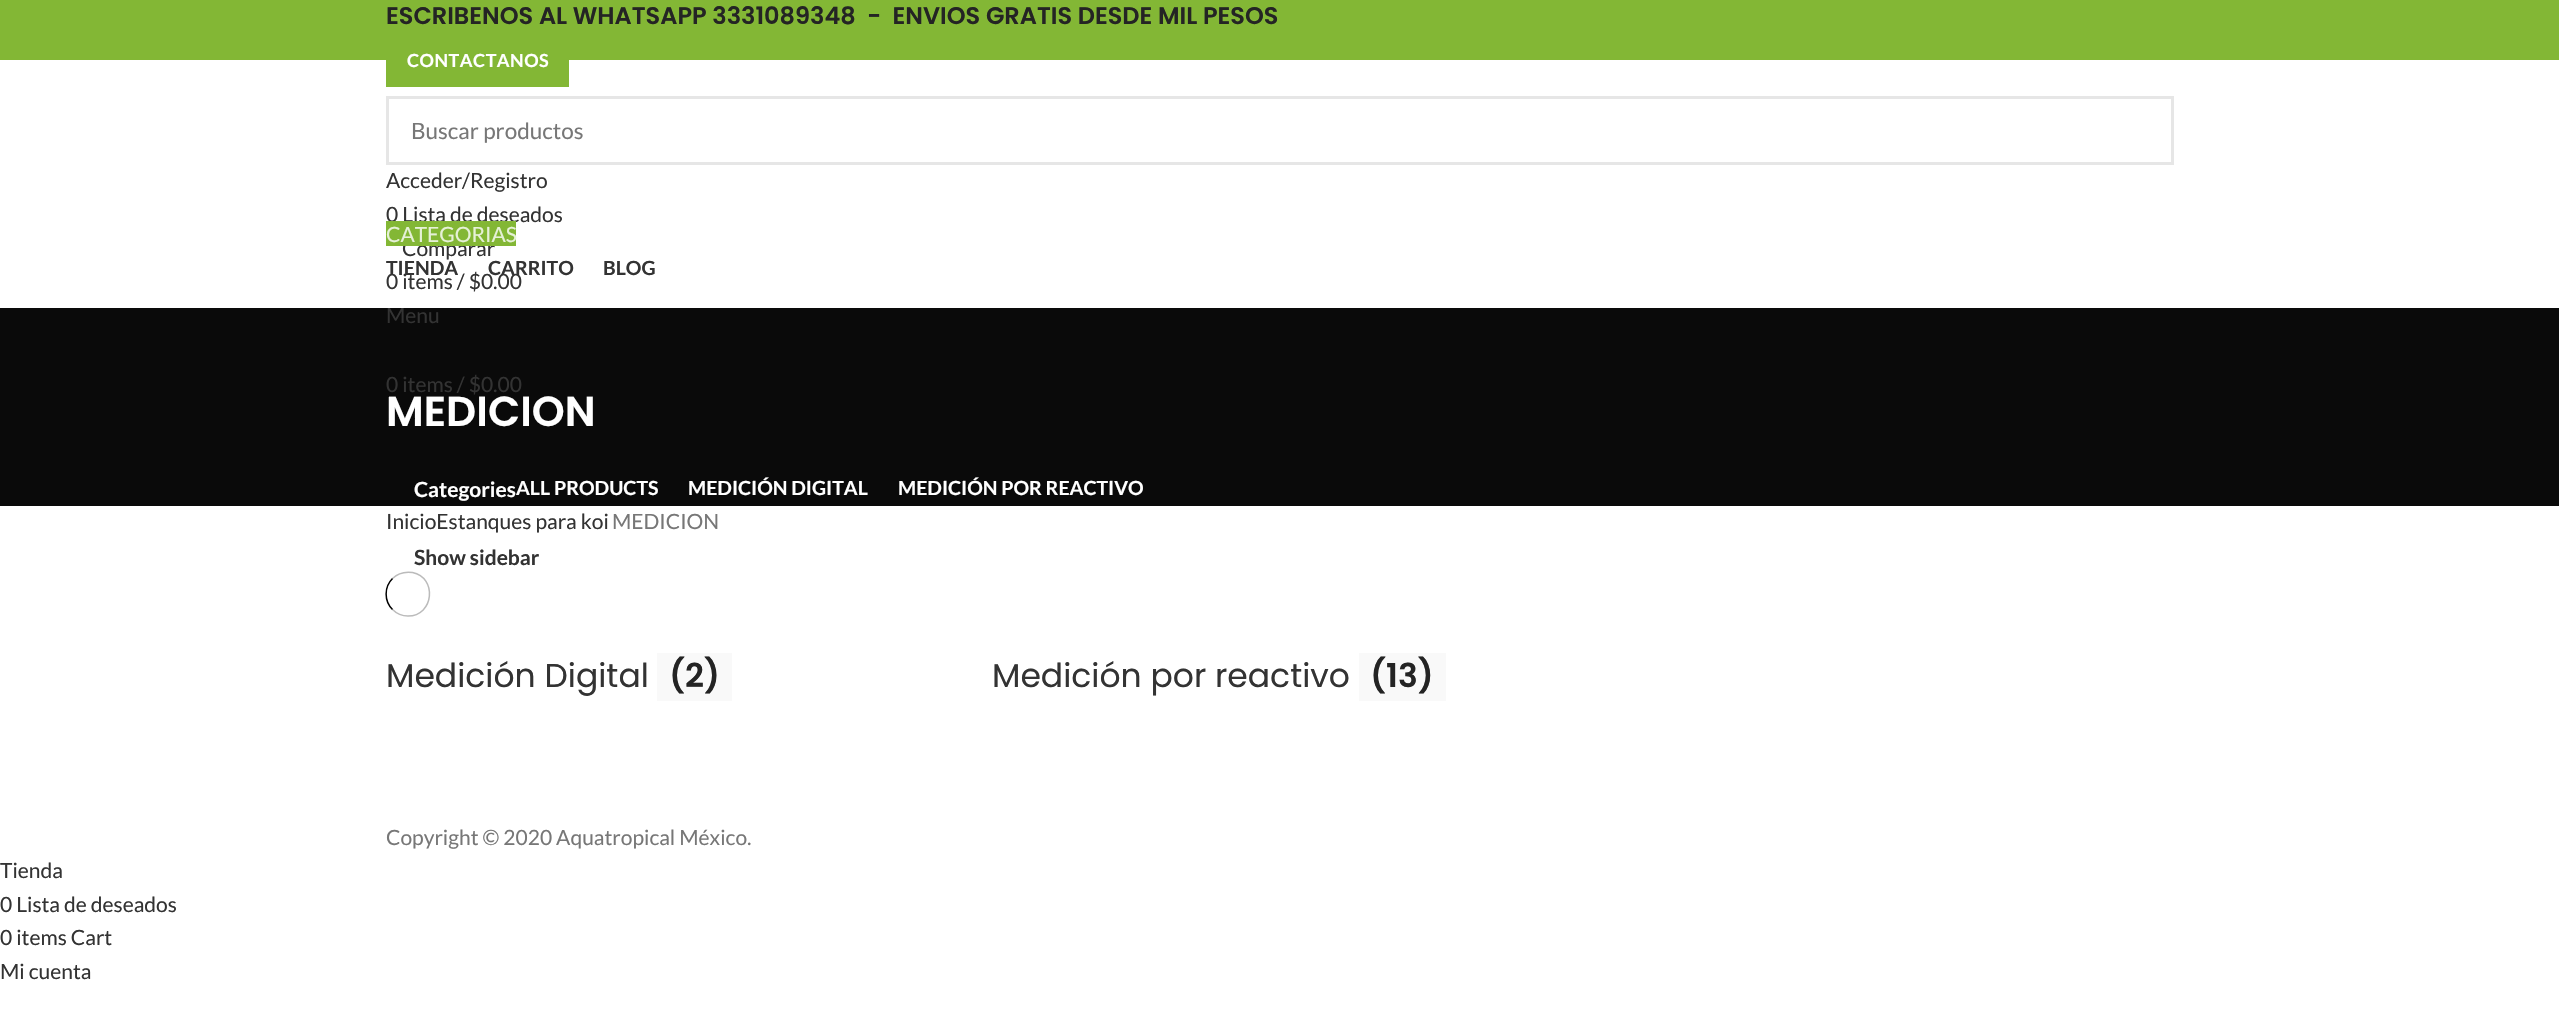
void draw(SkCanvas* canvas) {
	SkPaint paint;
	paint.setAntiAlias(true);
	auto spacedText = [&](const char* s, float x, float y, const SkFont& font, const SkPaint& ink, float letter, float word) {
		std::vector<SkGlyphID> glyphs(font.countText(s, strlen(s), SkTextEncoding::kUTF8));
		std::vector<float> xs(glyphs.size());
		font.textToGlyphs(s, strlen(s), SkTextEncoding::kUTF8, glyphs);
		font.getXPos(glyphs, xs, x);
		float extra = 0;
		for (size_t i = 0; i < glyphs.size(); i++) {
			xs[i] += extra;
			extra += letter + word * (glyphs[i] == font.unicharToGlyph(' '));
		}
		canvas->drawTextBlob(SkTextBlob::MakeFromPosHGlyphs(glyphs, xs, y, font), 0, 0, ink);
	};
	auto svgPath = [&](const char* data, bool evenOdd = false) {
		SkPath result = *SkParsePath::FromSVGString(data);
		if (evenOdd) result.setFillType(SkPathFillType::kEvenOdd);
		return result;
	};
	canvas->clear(0xffffffff);
	paint.setColor(0xff83b735);
	canvas->drawRect(SkRect::MakeXYWH(0, 0, 2559, 60), paint);
	SkFont f1(fontMgr->matchFamilyStyle("Poppins", SkFontStyle(600, SkFontStyle::kNormal_Width, SkFontStyle::kUpright_Slant)), 24);
	f1.setSubpixel(true);
	paint.setColor(0xff242424);
	canvas->drawString("ESCRIBENOS AL WHATSAPP 3331089348  -  ENVIOS GRATIS DESDE MIL PESOS", 386, 24, f1, paint);
	paint.setColor(0xff83b735);
	canvas->drawRect(SkRect::MakeXYWH(386, 60, 183, 27), paint);
	SkFont f2(fontMgr->matchFamilyStyle("Lato", SkFontStyle::Bold()), 18);
	f2.setSubpixel(true);
	paint.setColor(0xffffffff);
	spacedText("CONTACTANOS", 407, 67, f2, paint, 0.5, 0);
	paint.setStroke(true);
	paint.setStrokeWidth(3);
	paint.setColor(0xffe6e6e6);
	canvas->drawRect(SkRect::MakeXYWH(387.5, 97.5, 1785, 66), paint);
	SkFont f3(fontMgr->matchFamilyStyle("Lato", SkFontStyle::Normal()), 22.5);
	f3.setSubpixel(true);
	paint.setStroke(false);
	paint.setColor(0xff777777);
	canvas->drawString("Buscar productos", 411, 139, f3, paint);
	SkFont f4(fontMgr->matchFamilyStyle("Lato", SkFontStyle::Normal()), 21);
	f4.setSubpixel(true);
	paint.setColor(0xff333333);
	canvas->drawString("Acceder/Registro", 386, 188, f4, paint);
	canvas->drawString("0 Lista de deseados", 386, 222, f4, paint);
	canvas->drawString("Comparar", 402, 256, f4, paint);
	canvas->drawString("0 items / $0.00", 386, 289, f4, paint);
	paint.setColor(0xff0a0a0a);
	canvas->drawRect(SkRect::MakeXYWH(0, 308, 2559, 198), paint);
	paint.setColor(0xff333333);
	canvas->drawString("Menu", 386, 323, f4, paint);
	canvas->drawString("0 items / $0.00", 386, 392, f4, paint);
	paint.setColor(0xff83b735);
	canvas->drawRect(SkRect::MakeXYWH(386, 221, 130, 25), paint);
	paint.setColor(0xffe6f1d7);
	canvas->drawString("CATEGORIAS", 386, 242, f4, paint);
	SkFont f5(fontMgr->matchFamilyStyle("Lato", SkFontStyle::Bold()), 19.5);
	f5.setSubpixel(true);
	paint.setColor(0xff333333);
	canvas->drawString("TIENDA", 386, 275, f5, paint);
	canvas->drawString("CARRITO", 488, 275, f5, paint);
	canvas->drawString("BLOG", 603, 275, f5, paint);
	SkFont f6(fontMgr->matchFamilyStyle("Poppins", SkFontStyle(600, SkFontStyle::kNormal_Width, SkFontStyle::kUpright_Slant)), 42);
	f6.setSubpixel(true);
	paint.setColor(0xffffffff);
	canvas->drawString("MEDICION", 386, 426, f6, paint);
	SkFont f7(fontMgr->matchFamilyStyle("Lato", SkFontStyle::Bold()), 21);
	f7.setSubpixel(true);
	canvas->drawString("Categories", 414, 497, f7, paint);
	canvas->drawString("ALL", 516, 495, f5, paint);
	canvas->drawString("PRODUCTS", 554, 495, f5, paint);
	canvas->drawString("MEDICIÓN DIGITAL", 688, 495, f5, paint);
	canvas->drawString("MEDICIÓN POR REACTIVO", 898, 495, f5, paint);
	paint.setColor(0xff333333);
	canvas->drawString("InicioEstanques para koi", 386, 529, f4, paint);
	paint.setColor(0xff777777);
	canvas->drawString("MEDICION", 612, 529, f4, paint);
	paint.setColor(0xff333333);
	canvas->drawString("Show sidebar", 414, 565, f7, paint);
	paint.setStroke(true);
	paint.setStrokeWidth(1.5);
	paint.setColor(0xffbbbbbb);
	canvas->drawPath(svgPath("M392.5 578.5C397.5 573.5 405 571.5 412.5 572.5C437.5 577.5 434 616 408 616C402.5 616 396.5 613.5 392.5 609.5"), paint);
	paint.setColor(0xff000000);
	canvas->drawPath(svgPath("M392.5 609.5C384 601 384 587 392.5 578.5"), paint);
	SkFont f8(fontMgr->matchFamilyStyle("Poppins", SkFontStyle::Normal()), 33);
	f8.setSubpixel(true);
	paint.setStroke(false);
	paint.setColor(0xff333333);
	canvas->drawString("Medición Digital", 386, 687, f8, paint);
	paint.setColor(0xfff9f9f9);
	canvas->drawRect(SkRect::MakeXYWH(657, 653, 75, 48), paint);
	SkFont f9(fontMgr->matchFamilyStyle("Poppins", SkFontStyle(600, SkFontStyle::kNormal_Width, SkFontStyle::kUpright_Slant)), 33);
	f9.setSubpixel(true);
	paint.setColor(0xff242424);
	canvas->drawString("(2)", 669, 687, f9, paint);
	paint.setColor(0xff333333);
	canvas->drawString("Medición por reactivo", 992, 687, f8, paint);
	paint.setColor(0xfff9f9f9);
	canvas->drawRect(SkRect::MakeXYWH(1359, 653, 87, 48), paint);
	paint.setColor(0xff242424);
	canvas->drawString("(13)", 1370, 687, f9, paint);
	paint.setColor(0xff777777);
	canvas->drawString("Copyright © 2020 Aquatropical México.", 386, 845, f4, paint);
	paint.setColor(0xff333333);
	canvas->drawString("Tienda", 0, 878, f4, paint);
	canvas->drawString("0 Lista de deseados", 0, 912, f4, paint);
	canvas->drawString("0 items Cart", 0, 945, f4, paint);
	canvas->drawString("Mi cuenta", 0, 979, f4, paint);
}
